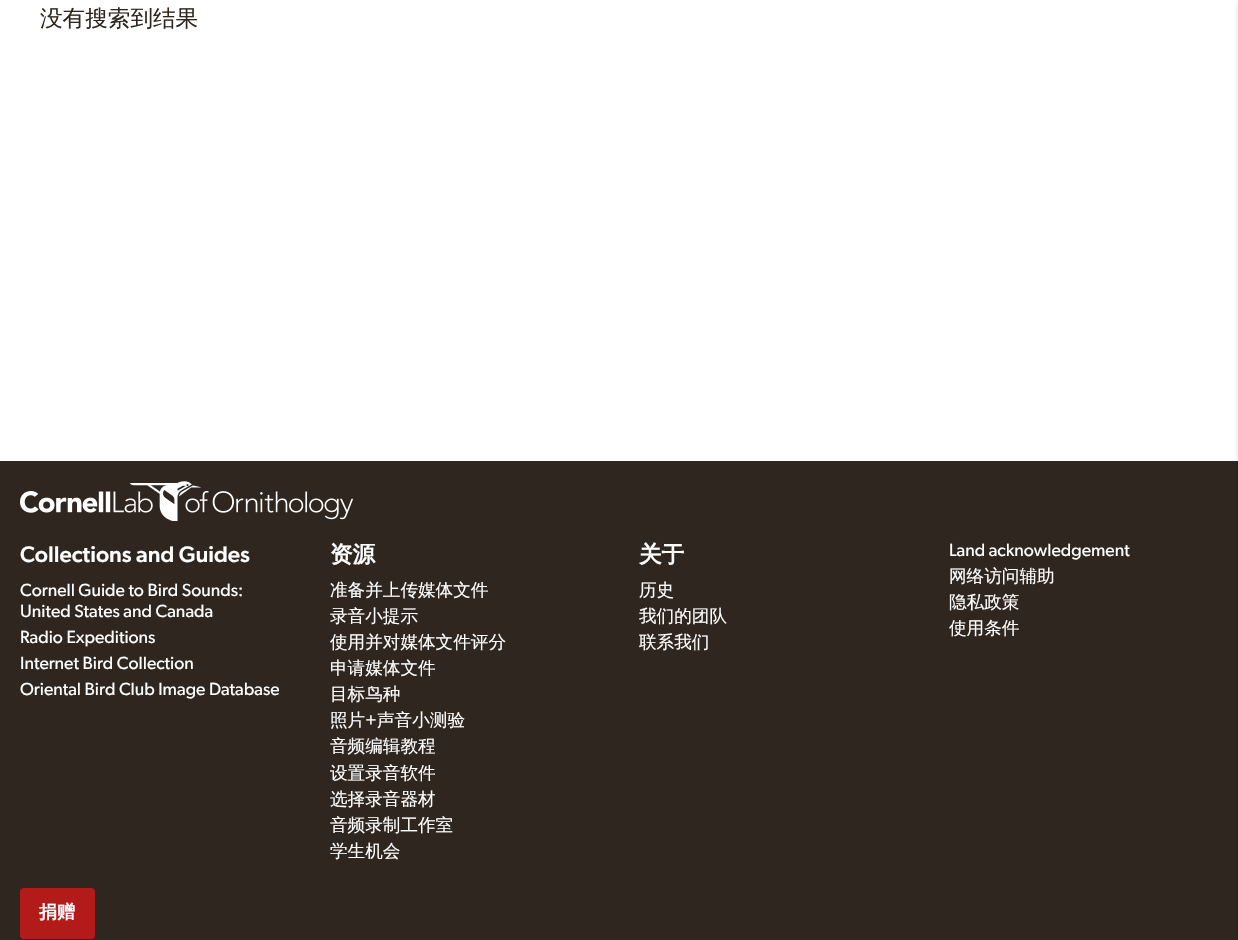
void draw(SkCanvas* canvas) {
	SkPaint paint;
	paint.setAntiAlias(true);
	canvas->clear(0xffffffff);
	SkFont f1(fontMgr->matchFamilyStyle("WenQuanYi Zen Hei", SkFontStyle(500, SkFontStyle::kNormal_Width, SkFontStyle::kUpright_Slant)), 22.6);
	f1.setSubpixel(true);
	paint.setColor(0xff2e261f);
	canvas->drawString("没有搜索到结果", 40, 26, f1, paint);
	canvas->drawRect(SkRect::MakeXYWH(0, 461, 1238, 479), paint);
	paint.setColor(0x33000000);
	paint.setMaskFilter(SkMaskFilter::MakeBlur(kNormal_SkBlurStyle, 2.5));
	canvas->drawRect(SkRect::MakeXYWH(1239, 3, 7, 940), paint);
	paint.setMaskFilter(nullptr);
	canvas->drawImageRect(SkImages::DeferredFromEncodedData(SkData::MakeFromFileName("img1.png")), SkRect::MakeXYWH(20, 481, 333, 40), SkSamplingOptions());
	SkFont f2(fontMgr->matchFamilyStyle("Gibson", SkFontStyle(500, SkFontStyle::kNormal_Width, SkFontStyle::kUpright_Slant)), 22.6);
	f2.setSubpixel(true);
	paint.setColor(0xffffffff);
	canvas->drawString("Collections and Guides", 20, 562, f2, paint);
	SkFont f3(fontMgr->matchFamilyStyle("Gibson", SkFontStyle::Normal()), 17.6);
	f3.setSubpixel(true);
	canvas->drawString("Cornell Guide to Bird Sounds:", 20, 596, f3, paint);
	canvas->drawString("United States and Canada", 20, 617, f3, paint);
	canvas->drawString("Radio Expeditions", 20, 643, f3, paint);
	canvas->drawString("Internet Bird Collection", 20, 669, f3, paint);
	canvas->drawString("Oriental Bird Club Image Database", 20, 695, f3, paint);
	SkFont f4(fontMgr->matchFamilyStyle("WenQuanYi Zen Hei", SkFontStyle::Bold()), 22.6);
	f4.setSubpixel(true);
	canvas->drawString("资源", 330, 562, f4, paint);
	SkFont f5(fontMgr->matchFamilyStyle("WenQuanYi Zen Hei", SkFontStyle(500, SkFontStyle::kNormal_Width, SkFontStyle::kUpright_Slant)), 17.6);
	f5.setSubpixel(true);
	canvas->drawString("准备并上传媒体文件", 330, 596, f5, paint);
	canvas->drawString("录音小提示", 330, 622, f5, paint);
	canvas->drawString("使用并对媒体文件评分", 330, 648, f5, paint);
	canvas->drawString("申请媒体文件", 330, 674, f5, paint);
	canvas->drawString("目标鸟种", 330, 700, f5, paint);
	canvas->drawString("照片", 330, 726, f5, paint);
	canvas->drawString("+", 365, 726, f3, paint);
	canvas->drawString("声音小测验", 377, 726, f5, paint);
	canvas->drawString("音频编辑教程", 330, 752, f5, paint);
	canvas->drawString("设置录音软件", 330, 779, f5, paint);
	canvas->drawString("选择录音器材", 330, 805, f5, paint);
	canvas->drawString("音频录制工作室", 330, 831, f5, paint);
	canvas->drawString("学生机会", 330, 857, f5, paint);
	canvas->drawString("关于", 639, 562, f4, paint);
	canvas->drawString("历史", 639, 596, f5, paint);
	canvas->drawString("我们的团队", 639, 622, f5, paint);
	canvas->drawString("联系我们", 639, 648, f5, paint);
	canvas->drawString("Land acknowledgement", 949, 556, f3, paint);
	canvas->drawString("网络访问辅助", 949, 582, f5, paint);
	canvas->drawString("隐私政策", 949, 608, f5, paint);
	canvas->drawString("使用条件", 949, 634, f5, paint);
	paint.setColor(0xffb31b1b);
	canvas->drawRoundRect(SkRect::MakeXYWH(20, 888, 75, 51), 4, 4, paint);
	SkFont f6(fontMgr->matchFamilyStyle("WenQuanYi Zen Hei", SkFontStyle::Bold()), 18);
	f6.setSubpixel(true);
	paint.setColor(0xffffffff);
	canvas->drawString("捐赠", 39, 918, f6, paint);
}
